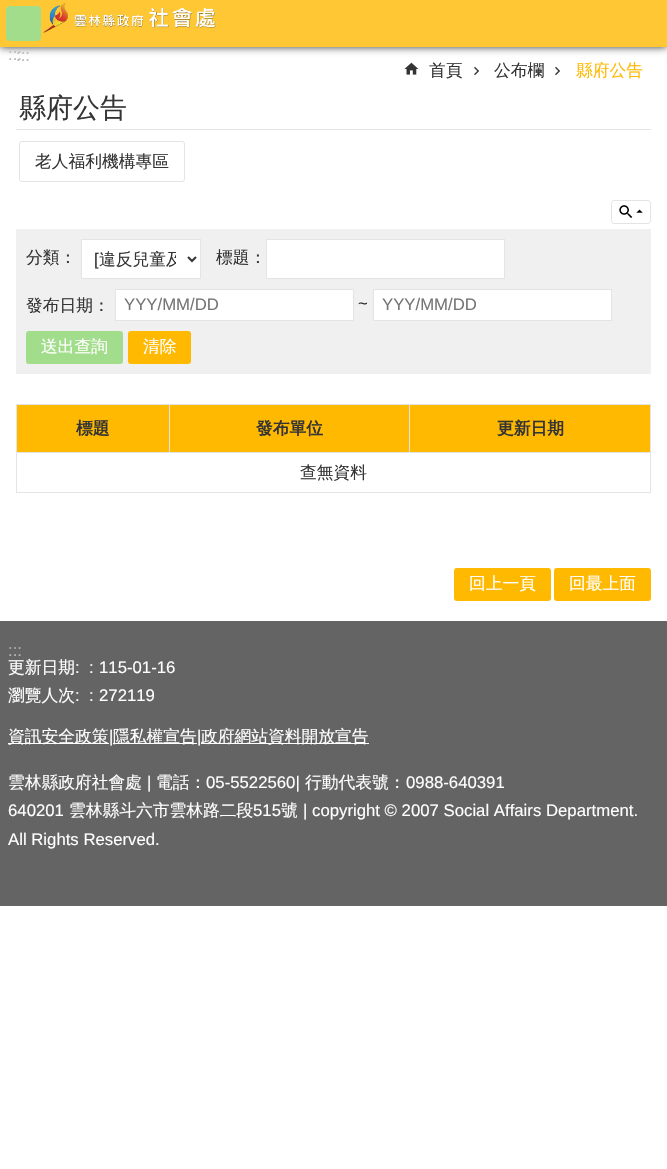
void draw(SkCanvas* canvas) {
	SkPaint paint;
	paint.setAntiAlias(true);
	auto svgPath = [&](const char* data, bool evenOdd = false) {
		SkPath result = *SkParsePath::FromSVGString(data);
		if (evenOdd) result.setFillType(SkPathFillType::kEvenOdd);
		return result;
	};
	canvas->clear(0xffffffff);
	paint.setColor(0xff343434);
	paint.setMaskFilter(SkMaskFilter::MakeBlur(kNormal_SkBlurStyle, 4));
	canvas->drawRect(SkRect::MakeXYWH(0, 0, 667, 47), paint);
	paint.setMaskFilter(nullptr);
	paint.setColor(0xffffc734);
	canvas->drawRect(SkRect::MakeXYWH(0, 0, 667, 47), paint);
	paint.setColor(0xffa2dd8b);
	canvas->drawRoundRect(SkRect::MakeXYWH(6, 6, 35, 35), 4, 4, paint);
	canvas->drawImageRect(SkImages::DeferredFromEncodedData(SkData::MakeFromFileName("img1.png")), SkRect::MakeXYWH(43, 2, 173, 31), SkSamplingOptions());
	SkFont f1(fontMgr->matchFamilyStyle("Liberation Sans", SkFontStyle::Normal()), 16.75);
	f1.setSubpixel(true);
	paint.setColor(0xffb6b6b6);
	canvas->drawString(":::", 8, 60, f1, paint);
	canvas->drawString(":::", 16, 61, f1, paint);
	canvas->drawImageRect(SkImages::DeferredFromEncodedData(SkData::MakeFromFileName("img2.png")), SkRect::MakeXYWH(404, 62, 15, 13), SkSamplingOptions());
	SkFont f2(fontMgr->matchFamilyStyle("WenQuanYi Zen Hei", SkFontStyle(500, SkFontStyle::kNormal_Width, SkFontStyle::kUpright_Slant)), 16.75);
	f2.setSubpixel(true);
	paint.setColor(0xff343434);
	canvas->drawString("首頁", 429, 76, f2, paint);
	canvas->drawImageRect(SkImages::DeferredFromEncodedData(SkData::MakeFromFileName("img3.png")), SkRect::MakeXYWH(474, 66, 5, 9), SkSamplingOptions());
	canvas->drawString("公布欄", 494, 76, f2, paint);
	canvas->drawImageRect(SkImages::DeferredFromEncodedData(SkData::MakeFromFileName("img3.png")), SkRect::MakeXYWH(555, 66, 5, 9), SkSamplingOptions());
	paint.setColor(0xffffb901);
	canvas->drawString("縣府公告", 576, 76, f2, paint);
	paint.setColor(0xffe4e4e4);
	canvas->drawRect(SkRect::MakeXYWH(16, 129, 635, 1), paint);
	SkFont f3(fontMgr->matchFamilyStyle("WenQuanYi Zen Hei", SkFontStyle(500, SkFontStyle::kNormal_Width, SkFontStyle::kUpright_Slant)), 27);
	f3.setSubpixel(true);
	paint.setColor(0xff343434);
	canvas->drawString("縣府公告", 19, 117, f3, paint);
	paint.setStroke(true);
	paint.setStrokeWidth(1);
	paint.setColor(0xffe4e4e4);
	canvas->drawRoundRect(SkRect::MakeXYWH(19.5, 141.5, 165, 40), 2.5, 2.5, paint);
	paint.setStroke(false);
	paint.setColor(0xff343434);
	canvas->drawString("老人福利機構專區", 35, 167, f2, paint);
	canvas->drawImageRect(SkImages::DeferredFromEncodedData(SkData::MakeFromFileName("img4.png")), SkRect::MakeXYWH(619, 205, 24, 13), SkSamplingOptions());
	paint.setStroke(true);
	paint.setColor(0xffe4e4e4);
	canvas->drawRoundRect(SkRect::MakeXYWH(611.5, 200.5, 39, 23), 2.5, 2.5, paint);
	paint.setStroke(false);
	paint.setColor(0xfff0f0f0);
	canvas->drawRect(SkRect::MakeXYWH(16, 229, 635, 145), paint);
	paint.setColor(0xff343434);
	canvas->drawString("分類：", 26, 263, f2, paint);
	paint.setColor(0xffffffff);
	canvas->drawRect(SkRect::MakeXYWH(81.5, 239.5, 119, 39), paint);
	paint.setStroke(true);
	paint.setColor(0xffe4e4e4);
	canvas->drawRect(SkRect::MakeXYWH(81.5, 239.5, 119, 39), paint);
	paint.setStrokeWidth(2);
	paint.setColor(0xff343434);
	canvas->drawPath(svgPath("M188 257L192 261L196 257"), paint);
	paint.setStroke(false);
	canvas->drawString("[", 94, 265, f1, paint);
	canvas->save();
	canvas->clipRect(SkRect::MakeXYWH(94, 249, 82, 21));
	canvas->drawString("違反兒童及", 99, 265, f2, paint);
	canvas->restore();
	canvas->drawString("標題：", 216, 263, f2, paint);
	paint.setColor(0xffffffff);
	canvas->drawRect(SkRect::MakeXYWH(266.5, 239.5, 238, 39), paint);
	paint.setStroke(true);
	paint.setStrokeWidth(1);
	paint.setColor(0xffe4e4e4);
	canvas->drawRect(SkRect::MakeXYWH(266.5, 239.5, 238, 39), paint);
	paint.setStroke(false);
	paint.setColor(0xff343434);
	canvas->drawString("發布日期：", 26, 311, f2, paint);
	paint.setColor(0xffffffff);
	canvas->drawRect(SkRect::MakeXYWH(115.5, 289.5, 238, 31), paint);
	paint.setStroke(true);
	paint.setColor(0xffe4e4e4);
	canvas->drawRect(SkRect::MakeXYWH(115.5, 289.5, 238, 31), paint);
	paint.setStroke(false);
	paint.setColor(0xff757575);
	canvas->drawString("YYY/MM/DD", 124, 310, f1, paint);
	paint.setColor(0xff343434);
	canvas->drawString("~", 358, 309, f1, paint);
	paint.setColor(0xffffffff);
	canvas->drawRect(SkRect::MakeXYWH(373.5, 289.5, 238, 31), paint);
	paint.setStroke(true);
	paint.setColor(0xffe4e4e4);
	canvas->drawRect(SkRect::MakeXYWH(373.5, 289.5, 238, 31), paint);
	paint.setStroke(false);
	paint.setColor(0xff757575);
	canvas->drawString("YYY/MM/DD", 382, 310, f1, paint);
	paint.setColor(0xffa2dd8b);
	canvas->drawRoundRect(SkRect::MakeXYWH(26, 331, 97, 33), 3, 3, paint);
	paint.setColor(0xffffffff);
	canvas->drawString("送出查詢", 41, 352, f2, paint);
	paint.setColor(0xffffb901);
	canvas->drawRoundRect(SkRect::MakeXYWH(128, 331, 63, 33), 3, 3, paint);
	paint.setColor(0xffffffff);
	canvas->drawString("清除", 143, 352, f2, paint);
	paint.setColor(0xffffb901);
	canvas->drawRect(SkRect::MakeXYWH(17, 405, 152, 47), paint);
	paint.setColor(0xffe4e4e4);
	canvas->drawRect(SkRect::MakeXYWH(409, 404, 242, 1), paint);
	canvas->drawRect(SkRect::MakeXYWH(16, 452, 635, 1), paint);
	canvas->drawRect(SkRect::MakeXYWH(409, 404, 1, 49), paint);
	canvas->drawRect(SkRect::MakeXYWH(169, 404, 241, 1), paint);
	canvas->drawRect(SkRect::MakeXYWH(169, 404, 1, 49), paint);
	canvas->drawRect(SkRect::MakeXYWH(16, 404, 154, 1), paint);
	canvas->drawRect(SkRect::MakeXYWH(650, 452, 1, 41), paint);
	canvas->drawRect(SkRect::MakeXYWH(16, 492, 635, 1), paint);
	canvas->drawRect(SkRect::MakeXYWH(16, 452, 1, 41), paint);
	canvas->drawRect(SkRect::MakeXYWH(16, 404, 1, 49), paint);
	SkFont f4(fontMgr->matchFamilyStyle("WenQuanYi Zen Hei", SkFontStyle::Bold()), 16.75);
	f4.setSubpixel(true);
	paint.setColor(0xff343434);
	canvas->drawString("標題", 76, 434, f4, paint);
	paint.setColor(0xffffb901);
	canvas->drawRect(SkRect::MakeXYWH(170, 405, 239, 47), paint);
	paint.setColor(0xff343434);
	canvas->drawString("發布單位", 256, 434, f4, paint);
	paint.setColor(0xffffb901);
	canvas->drawRect(SkRect::MakeXYWH(410, 405, 240, 47), paint);
	paint.setColor(0xffe4e4e4);
	canvas->drawRect(SkRect::MakeXYWH(650, 404, 1, 49), paint);
	paint.setColor(0xff343434);
	canvas->drawString("更新日期", 497, 434, f4, paint);
	canvas->drawString("查無資料", 300, 478, f2, paint);
	paint.setColor(0xffffb901);
	canvas->drawRoundRect(SkRect::MakeXYWH(454, 568, 97, 33), 3, 3, paint);
	paint.setColor(0xffffffff);
	canvas->drawString("回上一頁", 469, 589, f2, paint);
	paint.setColor(0xffffb901);
	canvas->drawRoundRect(SkRect::MakeXYWH(554, 568, 97, 33), 3, 3, paint);
	paint.setColor(0xffffffff);
	canvas->drawString("回最上面", 569, 589, f2, paint);
	paint.setColor(0xff646464);
	canvas->drawRect(SkRect::MakeXYWH(0, 621, 667, 285), paint);
	paint.setColor(0xffb6b6b6);
	canvas->drawString(":::", 8, 656, f1, paint);
	paint.setColor(0xffffffff);
	canvas->drawString("更新日期", 8, 673, f2, paint);
	canvas->drawString(":", 75, 673, f1, paint);
	canvas->drawString(":", 89, 673, f1, paint);
	canvas->drawString("115-01-16", 99, 673, f1, paint);
	canvas->drawString("瀏覽人次", 8, 701, f2, paint);
	canvas->drawString(":", 75, 701, f1, paint);
	canvas->drawString(":", 89, 701, f1, paint);
	canvas->drawString("272119", 99, 701, f1, paint);
	canvas->drawRect(SkRect::MakeXYWH(8, 743, 101, 1), paint);
	canvas->drawString("資訊安全政策", 8, 742, f2, paint);
	canvas->drawString("|", 109, 742, f1, paint);
	canvas->drawRect(SkRect::MakeXYWH(113, 743, 84, 1), paint);
	canvas->drawString("隱私權宣告", 113, 742, f2, paint);
	canvas->drawString("|", 197, 742, f1, paint);
	canvas->drawRect(SkRect::MakeXYWH(201, 743, 168, 1), paint);
	canvas->drawString("政府網站資料開放宣告", 201, 742, f2, paint);
	canvas->drawString("雲林縣政府社會處", 8, 788, f2, paint);
	canvas->drawString("|", 147, 788, f1, paint);
	canvas->drawString("電話：", 156, 788, f2, paint);
	canvas->drawString("05-5522560|", 206, 788, f1, paint);
	canvas->drawString("行動代表號：", 305, 788, f2, paint);
	canvas->drawString("0988-640391", 406, 788, f1, paint);
	canvas->drawString("640201", 8, 816, f1, paint);
	canvas->drawString("雲林縣斗六市雲林路二段", 69, 816, f2, paint);
	canvas->drawString("515", 253, 816, f1, paint);
	canvas->drawString("號", 281, 816, f2, paint);
	canvas->drawString("| copyright © 2007 Social Affairs Department.", 303, 816, f1, paint);
	canvas->drawString("All Rights Reserved.", 8, 845, f1, paint);
}
